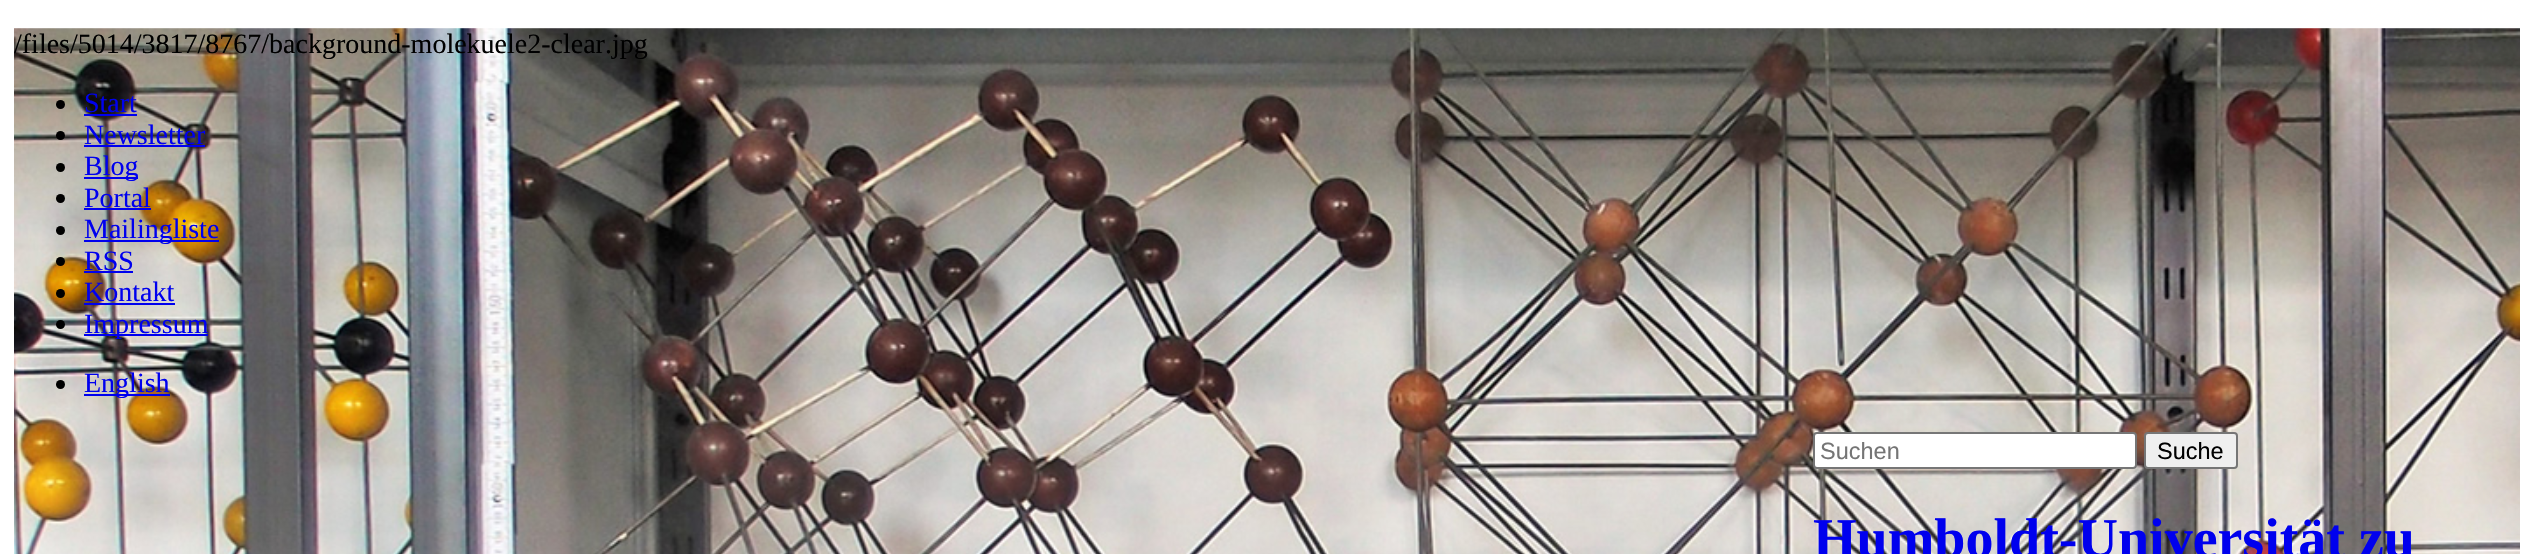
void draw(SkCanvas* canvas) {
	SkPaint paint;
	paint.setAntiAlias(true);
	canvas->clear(0xffffffff);
	canvas->drawImageRect(SkImages::DeferredFromEncodedData(SkData::MakeFromFileName("img1.png")), SkRect::MakeXYWH(14, 28, 2506, 526), SkSamplingOptions());
	SkFont f1(fontMgr->matchFamilyStyle("Liberation Serif", SkFontStyle::Normal()), 28);
	f1.setSubpixel(true);
	paint.setColor(0xff000000);
	canvas->drawString("/files/5014/3817/8767/background-molekuele2-clear.jpg", 14, 53, f1, paint);
	canvas->drawCircle(60.5, 104.5, 4.5, paint);
	paint.setColor(0xff0000ee);
	canvas->drawString("Start", 84, 112, f1, paint);
	canvas->drawRect(SkRect::MakeXYWH(84, 114, 53, 2), paint);
	paint.setColor(0xff000000);
	canvas->drawCircle(60.5, 135.5, 4.5, paint);
	paint.setColor(0xff0000ee);
	canvas->drawString("Newsletter", 84, 144, f1, paint);
	canvas->drawRect(SkRect::MakeXYWH(84, 145, 121, 2), paint);
	paint.setColor(0xff000000);
	canvas->drawCircle(60.5, 167.5, 4.5, paint);
	paint.setColor(0xff0000ee);
	canvas->drawRect(SkRect::MakeXYWH(84, 177, 54, 2), paint);
	canvas->drawString("Blog", 84, 175, f1, paint);
	paint.setColor(0xff000000);
	canvas->drawCircle(60.5, 198.5, 4.5, paint);
	paint.setColor(0xff0000ee);
	canvas->drawString("Portal", 84, 207, f1, paint);
	canvas->drawRect(SkRect::MakeXYWH(84, 208, 67, 2), paint);
	paint.setColor(0xff000000);
	canvas->drawCircle(60.5, 230.5, 4.5, paint);
	paint.setColor(0xff0000ee);
	canvas->drawRect(SkRect::MakeXYWH(84, 240, 135, 2), paint);
	canvas->drawString("Mailingliste", 84, 238, f1, paint);
	paint.setColor(0xff000000);
	canvas->drawCircle(60.5, 261.5, 4.5, paint);
	paint.setColor(0xff0000ee);
	canvas->drawString("RSS", 84, 270, f1, paint);
	canvas->drawRect(SkRect::MakeXYWH(84, 271, 49, 2), paint);
	paint.setColor(0xff000000);
	canvas->drawCircle(60.5, 293.5, 4.5, paint);
	paint.setColor(0xff0000ee);
	canvas->drawString("Kontakt", 84, 301, f1, paint);
	canvas->drawRect(SkRect::MakeXYWH(84, 303, 91, 2), paint);
	paint.setColor(0xff000000);
	canvas->drawCircle(60.5, 324.5, 4.5, paint);
	paint.setColor(0xff0000ee);
	canvas->drawRect(SkRect::MakeXYWH(84, 334, 124, 2), paint);
	canvas->drawString("Impressum", 84, 333, f1, paint);
	paint.setColor(0xff000000);
	canvas->drawCircle(60.5, 384.5, 4.5, paint);
	paint.setColor(0xff0000ee);
	canvas->drawRect(SkRect::MakeXYWH(84, 394, 86, 2), paint);
	canvas->drawString("English", 84, 392, f1, paint);
	paint.setColor(0xffffffff);
	canvas->drawRoundRect(SkRect::MakeXYWH(1814, 433, 322, 35), 3, 3, paint);
	paint.setStroke(true);
	paint.setStrokeWidth(2);
	paint.setColor(0xff767676);
	canvas->drawRoundRect(SkRect::MakeXYWH(1814, 433, 322, 35), 3, 3, paint);
	SkFont f2(fontMgr->matchFamilyStyle("Liberation Sans", SkFontStyle::Normal()), 23.5);
	f2.setSubpixel(true);
	paint.setStroke(false);
	paint.setColor(0xff757575);
	canvas->drawString("Suchen", 1820, 459, f2, paint);
	paint.setColor(0xffefefef);
	canvas->drawRoundRect(SkRect::MakeXYWH(2145, 433, 92, 35), 3, 3, paint);
	paint.setStroke(true);
	paint.setColor(0xff767676);
	canvas->drawRoundRect(SkRect::MakeXYWH(2145, 433, 92, 35), 3, 3, paint);
	paint.setStroke(false);
	paint.setColor(0xff000000);
	canvas->drawString("Suche", 2157, 459, f2, paint);
	SkFont f3(fontMgr->matchFamilyStyle("Liberation Serif", SkFontStyle::Bold()), 56);
	f3.setSubpixel(true);
	paint.setColor(0xff0000ee);
	canvas->drawString("Humboldt-Universität zu", 1813, 557, f3, paint);
}
